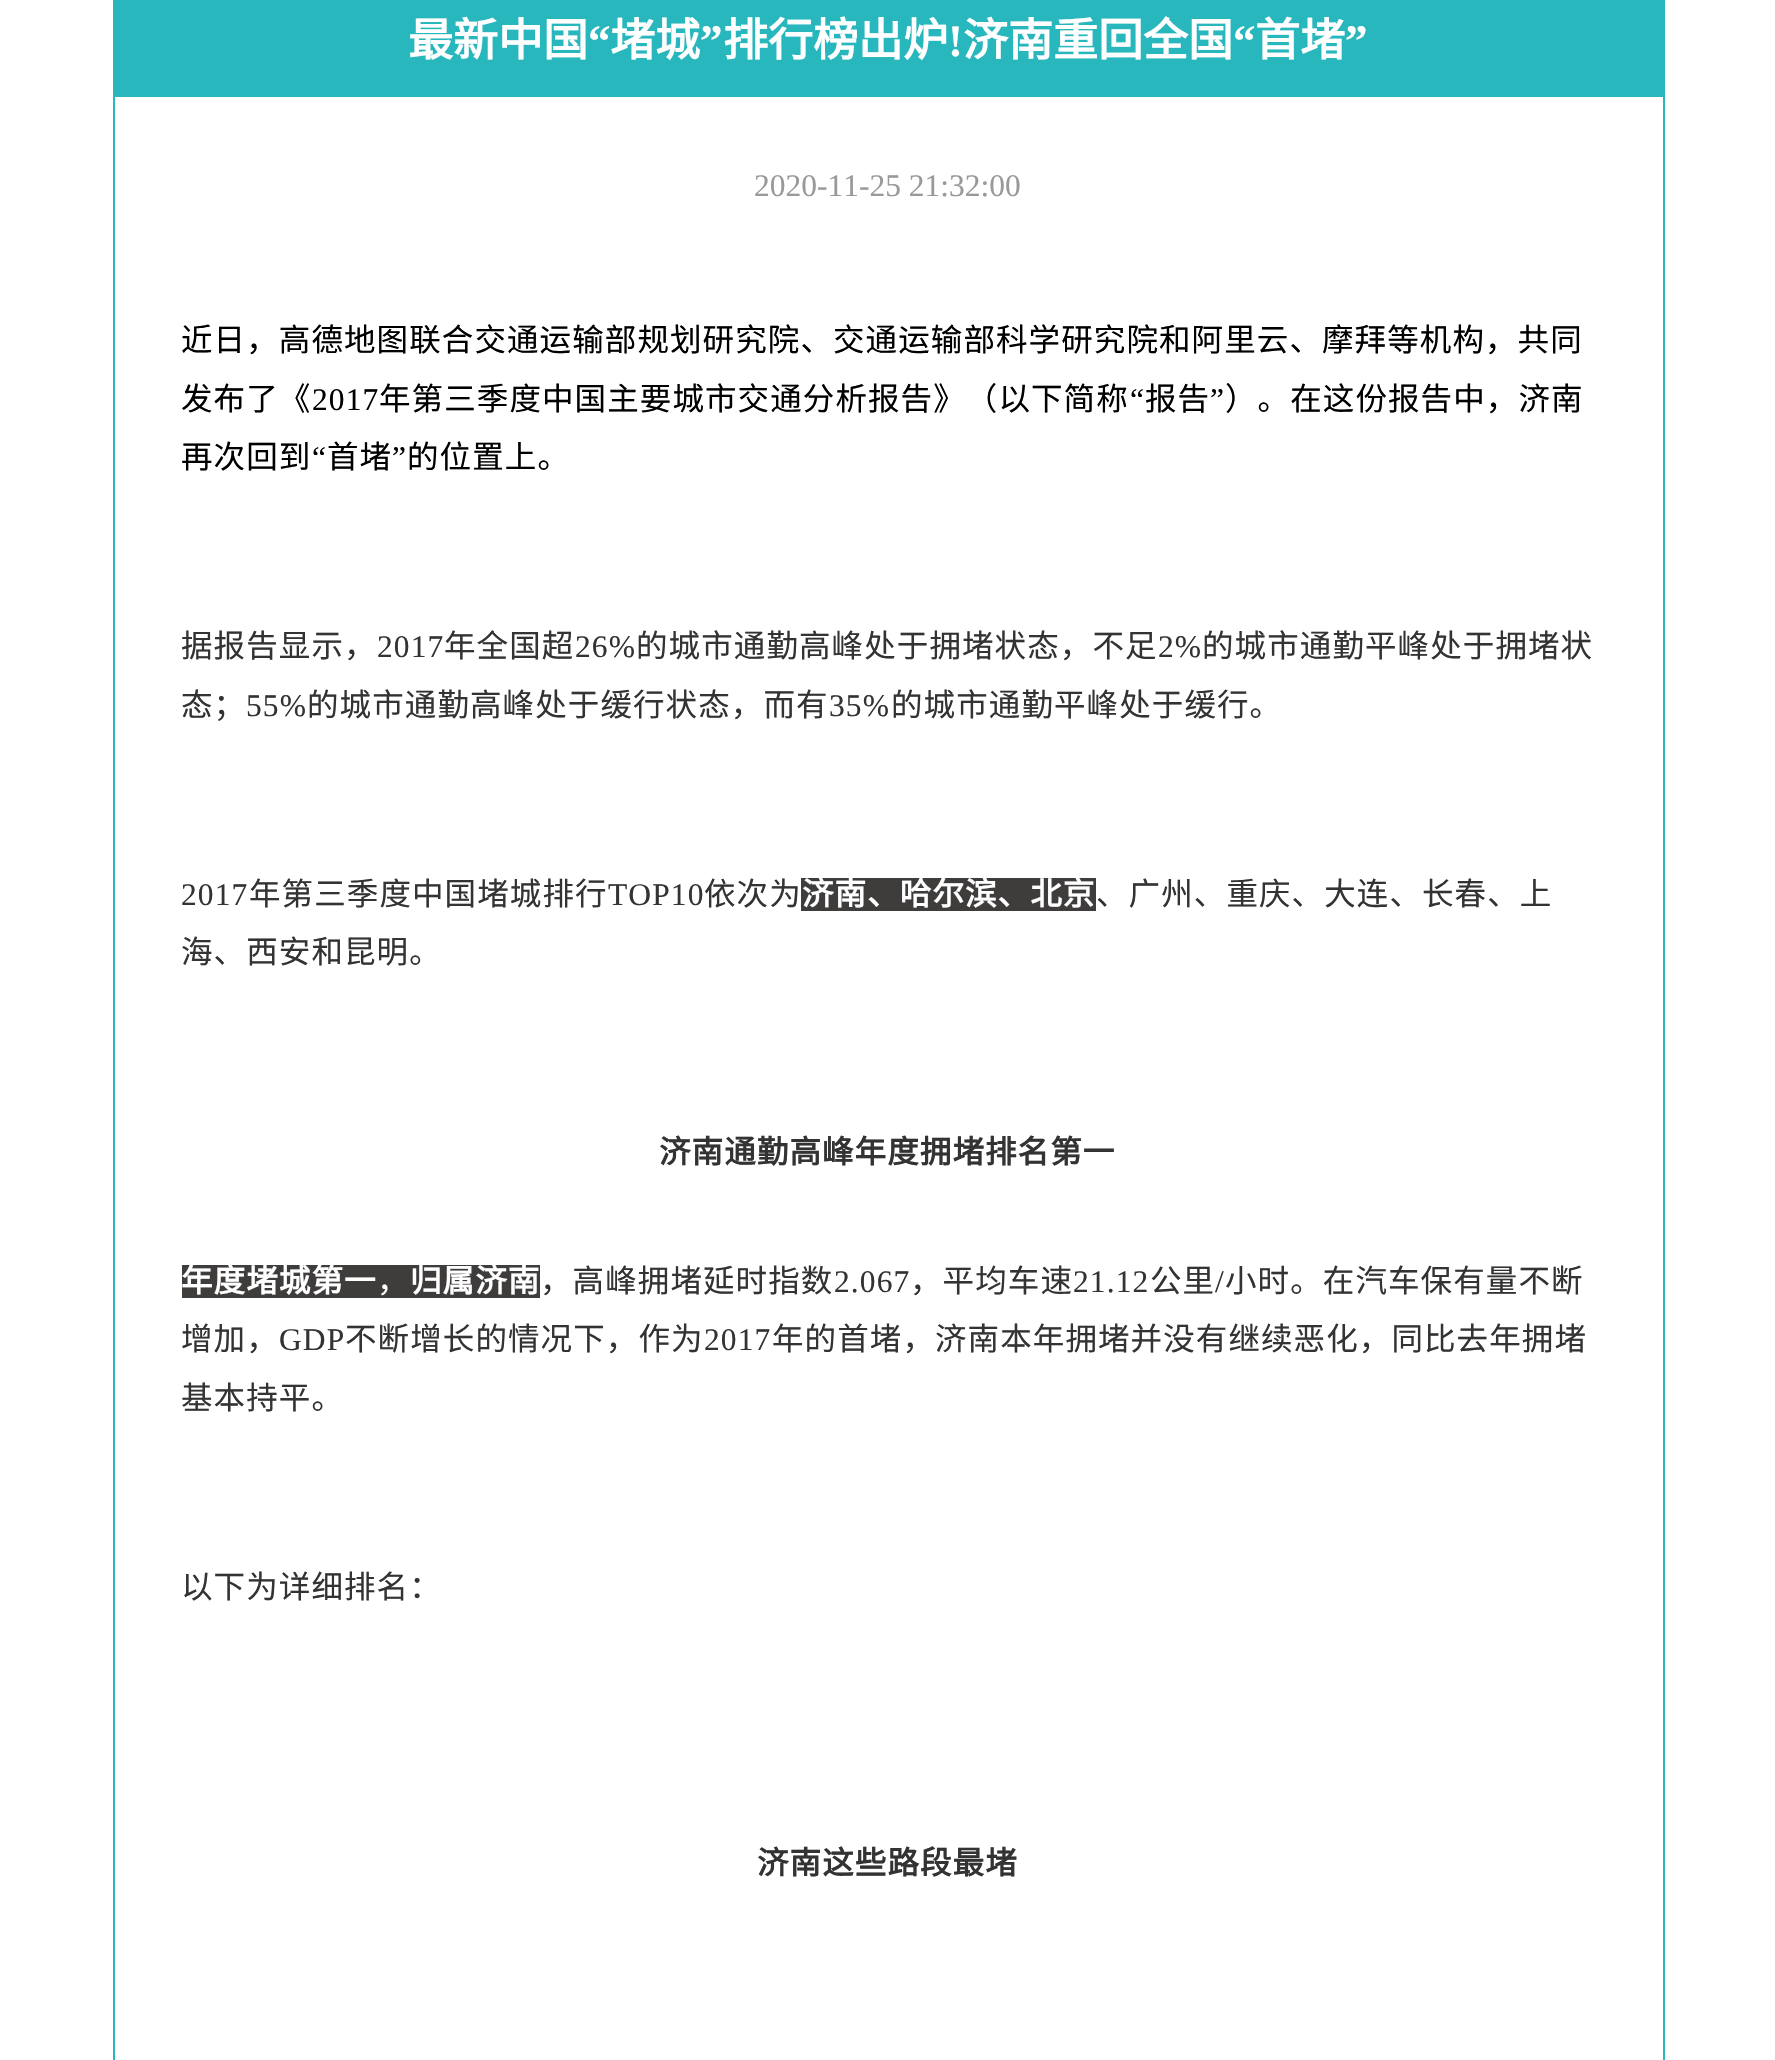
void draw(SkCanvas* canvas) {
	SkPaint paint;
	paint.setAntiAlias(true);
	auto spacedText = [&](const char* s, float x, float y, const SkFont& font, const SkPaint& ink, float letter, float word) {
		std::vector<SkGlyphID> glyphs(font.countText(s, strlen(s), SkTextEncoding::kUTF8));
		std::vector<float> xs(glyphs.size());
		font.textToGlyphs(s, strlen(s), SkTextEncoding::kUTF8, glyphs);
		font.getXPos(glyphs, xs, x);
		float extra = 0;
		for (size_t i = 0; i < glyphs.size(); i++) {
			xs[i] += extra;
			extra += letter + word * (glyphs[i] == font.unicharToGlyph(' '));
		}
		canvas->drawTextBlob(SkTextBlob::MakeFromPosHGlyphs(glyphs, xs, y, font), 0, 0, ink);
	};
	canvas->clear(0xffffffff);
	paint.setStroke(true);
	paint.setStrokeWidth(2);
	paint.setColor(0xff28b7bd);
	canvas->drawRect(SkRect::MakeXYWH(114, -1, 1550, 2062), paint);
	paint.setStroke(false);
	canvas->drawRect(SkRect::MakeXYWH(115, 0, 1548, 97), paint);
	SkFont f1(fontMgr->matchFamilyStyle("Noto Sans CJK SC", SkFontStyle::Bold()), 45);
	f1.setSubpixel(true);
	paint.setColor(0xffffffff);
	canvas->drawString("最新中国", 408, 56, f1, paint);
	SkFont f2(fontMgr->matchFamilyStyle("Liberation Serif", SkFontStyle::Bold()), 45);
	f2.setSubpixel(true);
	canvas->drawString("“", 588, 56, f2, paint);
	canvas->drawString("堵城", 610, 56, f1, paint);
	canvas->drawString("”", 700, 56, f2, paint);
	canvas->drawString("排行榜出炉", 723, 56, f1, paint);
	canvas->drawString("!", 948, 56, f2, paint);
	canvas->drawString("济南重回全国", 963, 56, f1, paint);
	canvas->drawString("“", 1233, 56, f2, paint);
	canvas->drawString("首堵", 1255, 56, f1, paint);
	canvas->drawString("”", 1345, 56, f2, paint);
	SkFont f3(fontMgr->matchFamilyStyle("Liberation Serif", SkFontStyle::Normal()), 31.5);
	f3.setSubpixel(true);
	paint.setColor(0xff999999);
	canvas->drawString("2020-11-25 21:32:00", 754, 196, f3, paint);
	SkFont f4(fontMgr->matchFamilyStyle("Noto Sans CJK SC", SkFontStyle::Normal()), 31.5);
	f4.setSubpixel(true);
	paint.setColor(0xff000000);
	spacedText("近日，高德地图联合交通运输部规划研究院、交通运输部科学研究院和阿里云、摩拜等机构，共同", 181, 351, f4, paint, 1.1, 0);
	spacedText("发布了《", 181, 410, f4, paint, 1.1, 0);
	spacedText("2017", 312, 410, f3, paint, 1.1, 0);
	spacedText("年第三季度中国主要城市交通分析报告》（以下简称", 379, 410, f4, paint, 1.1, 0);
	spacedText("“", 1130, 410, f3, paint, 1.1, 0);
	spacedText("报告", 1145, 410, f4, paint, 1.1, 0);
	spacedText("”", 1210, 410, f3, paint, 1.1, 0);
	spacedText("）。在这份报告中，济南", 1225, 410, f4, paint, 1.1, 0);
	spacedText("再次回到", 181, 468, f4, paint, 1.1, 0);
	spacedText("“", 312, 468, f3, paint, 1.1, 0);
	spacedText("首堵", 327, 468, f4, paint, 1.1, 0);
	spacedText("”", 392, 468, f3, paint, 1.1, 0);
	spacedText("的位置上。", 407, 468, f4, paint, 1.1, 0);
	paint.setColor(0xff333333);
	spacedText("据报告显示，", 181, 657, f4, paint, 1.1, 0);
	spacedText("2017", 377, 657, f3, paint, 1.1, 0);
	spacedText("年全国超", 444, 657, f4, paint, 1.1, 0);
	spacedText("26%", 575, 657, f3, paint, 1.1, 0);
	spacedText("的城市通勤高峰处于拥堵状态，不足", 636, 657, f4, paint, 1.1, 0);
	spacedText("2%", 1158, 657, f3, paint, 1.1, 0);
	spacedText("的城市通勤平峰处于拥堵状", 1202, 657, f4, paint, 1.1, 0);
	spacedText("态；", 181, 716, f4, paint, 1.1, 0);
	spacedText("55%", 246, 716, f3, paint, 1.1, 0);
	spacedText("的城市通勤高峰处于缓行状态，而有", 307, 716, f4, paint, 1.1, 0);
	spacedText("35%", 829, 716, f3, paint, 1.1, 0);
	spacedText("的城市通勤平峰处于缓行。", 891, 716, f4, paint, 1.1, 0);
	spacedText("2017", 181, 905, f3, paint, 1.1, 0);
	spacedText("年第三季度中国堵城排行", 249, 905, f4, paint, 1.1, 0);
	spacedText("TOP10", 608, 905, f3, paint, 1.1, 0);
	spacedText("依次为", 704, 905, f4, paint, 1.1, 0);
	paint.setColor(0xff3f3c3c);
	canvas->drawRect(SkRect::MakeXYWH(801, 878, 295, 33), paint);
	SkFont f5(fontMgr->matchFamilyStyle("Noto Sans CJK SC", SkFontStyle::Bold()), 31.5);
	f5.setSubpixel(true);
	paint.setColor(0xffffffff);
	spacedText("济南、哈尔滨、北京", 802, 905, f5, paint, 1.1, 0);
	paint.setColor(0xff333333);
	spacedText("、广州、重庆、大连、长春、上", 1096, 905, f4, paint, 1.1, 0);
	spacedText("海、西安和昆明。", 181, 963, f4, paint, 1.1, 0);
	spacedText("济南通勤高峰年度拥堵排名第一", 659, 1163, f5, paint, 1.1, 0);
	paint.setColor(0xff3f3c3c);
	canvas->drawRect(SkRect::MakeXYWH(182, 1265, 358, 33), paint);
	paint.setColor(0xffffffff);
	spacedText("年度堵城第一", 181, 1292, f5, paint, 1.1, 0);
	spacedText("，", 377, 1292, f4, paint, 1.1, 0);
	spacedText("归属济南", 410, 1292, f5, paint, 1.1, 0);
	paint.setColor(0xff333333);
	spacedText("，高峰拥堵延时指数", 540, 1292, f4, paint, 1.1, 0);
	spacedText("2.067", 834, 1292, f3, paint, 1.1, 0);
	spacedText("，平均车速", 910, 1292, f4, paint, 1.1, 0);
	spacedText("21.12", 1073, 1292, f3, paint, 1.1, 0);
	spacedText("公里", 1150, 1292, f4, paint, 1.1, 0);
	spacedText("/", 1215, 1292, f3, paint, 1.1, 0);
	spacedText("小时。在汽车保有量不断", 1225, 1292, f4, paint, 1.1, 0);
	spacedText("增加，", 181, 1350, f4, paint, 1.1, 0);
	spacedText("GDP", 279, 1350, f3, paint, 1.1, 0);
	spacedText("不断增长的情况下，作为", 345, 1350, f4, paint, 1.1, 0);
	spacedText("2017", 704, 1350, f3, paint, 1.1, 0);
	spacedText("年的首堵，济南本年拥堵并没有继续恶化，同比去年拥堵", 772, 1350, f4, paint, 1.1, 0);
	spacedText("基本持平。", 181, 1409, f4, paint, 1.1, 0);
	spacedText("以下为详细排名：", 181, 1598, f4, paint, 1.1, 0);
	spacedText("济南这些路段最堵", 757, 1874, f5, paint, 1.1, 0);
}
